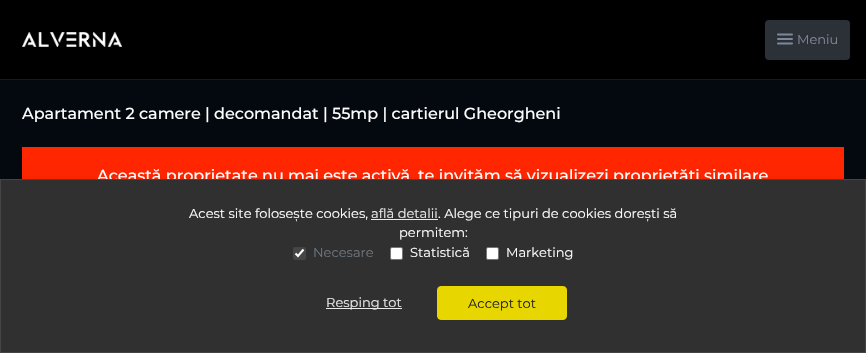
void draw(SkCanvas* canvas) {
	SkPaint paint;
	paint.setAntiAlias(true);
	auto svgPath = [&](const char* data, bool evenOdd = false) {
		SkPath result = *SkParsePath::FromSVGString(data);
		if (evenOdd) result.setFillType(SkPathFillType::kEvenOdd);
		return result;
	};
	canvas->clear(0xff04080f);
	paint.setColor(0xff000000);
	canvas->drawRect(SkRect::MakeXYWH(0, 0, 866, 79), paint);
	paint.setColor(0xff1a1a1a);
	canvas->drawRect(SkRect::MakeXYWH(0, 79, 866, 1), paint);
	canvas->drawImageRect(SkImages::DeferredFromEncodedData(SkData::MakeFromFileName("img1.png")), SkRect::MakeXYWH(22, 32, 100, 15), SkSamplingOptions());
	paint.setColor(0xff2c3037);
	canvas->drawRoundRect(SkRect::MakeXYWH(765, 20, 85, 40), 4, 4, paint);
	paint.setStroke(true);
	paint.setStrokeWidth(2);
	paint.setStrokeCap(SkPaint::kRound_Cap);
	paint.setStrokeJoin(SkPaint::kRound_Join);
	paint.setColor(0xff7d889a);
	canvas->drawPath(svgPath("M778 39H792M778 34.5H792M778 43.5H792"), paint);
	SkFont f1(fontMgr->matchFamilyStyle("Montserrat", SkFontStyle::Normal()), 13);
	f1.setSubpixel(true);
	paint.setStroke(false);
	canvas->drawString("Meniu", 797, 44, f1, paint);
	SkFont f2(fontMgr->matchFamilyStyle("Montserrat", SkFontStyle(500, SkFontStyle::kNormal_Width, SkFontStyle::kUpright_Slant)), 16);
	f2.setSubpixel(true);
	paint.setColor(0xffffffff);
	canvas->drawString("Apartament 2 camere | decomandat | 55mp | cartierul Gheorgheni", 22, 119, f2, paint);
	paint.setColor(0xffff2600);
	canvas->drawRect(SkRect::MakeXYWH(22, 147, 822, 32), paint);
	paint.setColor(0xffffffff);
	canvas->drawString("Această proprietate nu mai este activă", 97, 181, f2, paint);
	canvas->drawString("te invităm să vizualizezi proprietăți similare", 418, 181, f2, paint);
	paint.setColor(0x26000000);
	paint.setMaskFilter(SkMaskFilter::MakeBlur(kNormal_SkBlurStyle, 8));
	canvas->drawRect(SkRect::MakeXYWH(0, 187, 866, 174), paint);
	paint.setMaskFilter(nullptr);
	paint.setColor(0xff303030);
	canvas->drawRect(SkRect::MakeXYWH(0.5, 179.5, 865, 173), paint);
	paint.setStroke(true);
	paint.setStrokeWidth(1);
	paint.setStrokeCap(SkPaint::kButt_Cap);
	paint.setStrokeJoin(SkPaint::kMiter_Join);
	paint.setColor(0xff454545);
	canvas->drawRect(SkRect::MakeXYWH(0.5, 179.5, 865, 173), paint);
	paint.setStroke(false);
	paint.setColor(0xffffffff);
	canvas->drawString("Acest site folosește cookies,", 189, 218, f1, paint);
	paint.setColor(0xffeaeaea);
	canvas->drawString("află detalii", 371, 218, f1, paint);
	paint.setColor(0xffffffff);
	canvas->drawString(". Alege ce tipuri de cookies dorești să", 438, 218, f1, paint);
	paint.setColor(0xffeaeaea);
	canvas->drawRect(SkRect::MakeXYWH(371, 219, 67, 1), paint);
	paint.setColor(0xffffffff);
	canvas->drawString("permitem:", 399, 237, f1, paint);
	paint.setColor(0xff454545);
	canvas->drawRoundRect(SkRect::MakeXYWH(293, 247, 13, 13), 2, 2, paint);
	paint.setStroke(true);
	paint.setStrokeWidth(2.1);
	paint.setColor(0xffffffff);
	canvas->drawPath(svgPath("M295.5 253.5L298 256L303.5 249.5"), paint);
	paint.setStroke(false);
	paint.setColor(0xff6c757d);
	canvas->drawString("Necesare", 313, 257, f1, paint);
	paint.setColor(0xffffffff);
	canvas->drawRoundRect(SkRect::MakeXYWH(390.5, 247.5, 12, 12), 1.5, 1.5, paint);
	paint.setStroke(true);
	paint.setStrokeWidth(1);
	paint.setColor(0xff767676);
	canvas->drawRoundRect(SkRect::MakeXYWH(390.5, 247.5, 12, 12), 1.5, 1.5, paint);
	paint.setStroke(false);
	paint.setColor(0xffffffff);
	canvas->drawString("Statistică", 410, 257, f1, paint);
	canvas->drawRoundRect(SkRect::MakeXYWH(486.5, 247.5, 12, 12), 1.5, 1.5, paint);
	paint.setStroke(true);
	paint.setColor(0xff767676);
	canvas->drawRoundRect(SkRect::MakeXYWH(486.5, 247.5, 12, 12), 1.5, 1.5, paint);
	paint.setStroke(false);
	paint.setColor(0xffffffff);
	canvas->drawString("Marketing", 506, 257, f1, paint);
	paint.setColor(0xffeaeaea);
	canvas->drawRect(SkRect::MakeXYWH(326, 308, 76, 1), paint);
	canvas->drawString("Resping tot", 326, 307, f1, paint);
	paint.setColor(0xffe8d601);
	canvas->drawRoundRect(SkRect::MakeXYWH(437.5, 286.5, 129, 33), 3.5, 3.5, paint);
	paint.setStroke(true);
	canvas->drawRoundRect(SkRect::MakeXYWH(437.5, 286.5, 129, 33), 3.5, 3.5, paint);
	paint.setStroke(false);
	paint.setColor(0xff212529);
	canvas->drawString("Accept tot", 468, 308, f1, paint);
}
